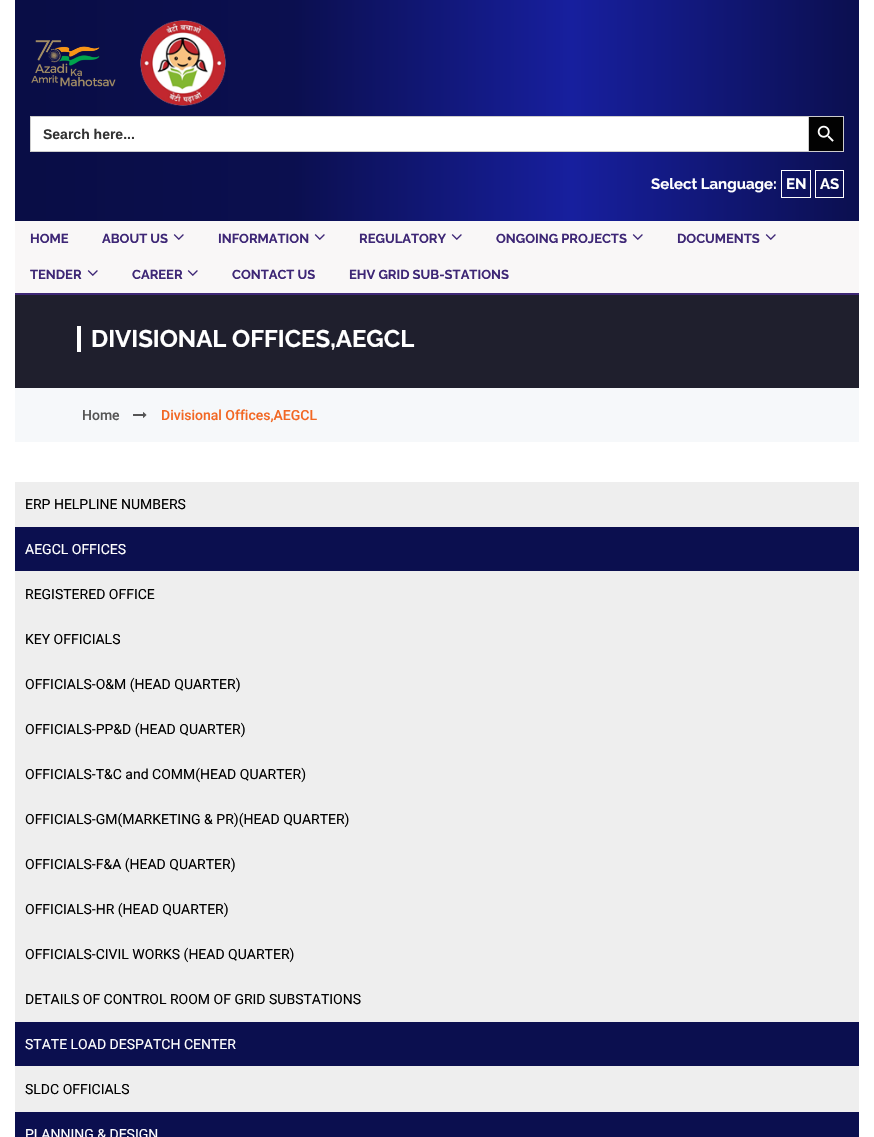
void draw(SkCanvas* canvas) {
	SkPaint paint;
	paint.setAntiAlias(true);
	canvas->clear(0xffffffff);
	{
		const SkColor colors[] = {0xff090d46, 0xff0b0f4f, 0xff171f9e, 0xff0b0f4f};
		const float stops[] = {0.02, 0.33, 0.66, 1};
		const SkPoint ends[] = {{15, 44}, {859, 44}};
		paint.setShader(SkGradientShader::MakeLinear(ends, colors, stops, 4, SkTileMode::kClamp));
		paint.setAlpha(255);
	}
	canvas->drawRect(SkRect::MakeXYWH(15, 0, 844, 221), paint);
	canvas->drawImageRect(SkImages::DeferredFromEncodedData(SkData::MakeFromFileName("img1.png")), SkRect::MakeXYWH(31, 40, 85, 47), SkSamplingOptions());
	canvas->drawImageRect(SkImages::DeferredFromEncodedData(SkData::MakeFromFileName("img2.png")), SkRect::MakeXYWH(140, 20, 86, 86), SkSamplingOptions());
	paint.setShader(nullptr);
	paint.setColor(0xffffffff);
	canvas->drawRect(SkRect::MakeXYWH(31, 117, 777, 34), paint);
	paint.setColor(0xffcccccc);
	canvas->drawRect(SkRect::MakeXYWH(30, 116, 778, 1), paint);
	canvas->drawRect(SkRect::MakeXYWH(30, 151, 778, 1), paint);
	canvas->drawRect(SkRect::MakeXYWH(30, 116, 1, 36), paint);
	SkFont f1(fontMgr->matchFamilyStyle("Liberation Sans", SkFontStyle::Bold()), 14);
	f1.setSubpixel(true);
	paint.setColor(0xff333333);
	canvas->drawString("Search here...", 43, 139, f1, paint);
	paint.setColor(0xff020202);
	canvas->drawRect(SkRect::MakeXYWH(808.5, 116.5, 35, 35), paint);
	paint.setStroke(true);
	paint.setStrokeWidth(1);
	paint.setColor(0xffcccccc);
	canvas->drawRect(SkRect::MakeXYWH(808.5, 116.5, 35, 35), paint);
	canvas->drawImageRect(SkImages::DeferredFromEncodedData(SkData::MakeFromFileName("img3.png")), SkRect::MakeXYWH(817, 125, 17, 17), SkSamplingOptions());
	SkFont f2(fontMgr->matchFamilyStyle("Raleway", SkFontStyle(100, SkFontStyle::kNormal_Width, SkFontStyle::kUpright_Slant)), 15);
	f2.setSubpixel(true);
	paint.setStroke(false);
	paint.setColor(0xffffffff);
	canvas->drawString("Select Language:", 651, 189, f2, paint);
	paint.setStroke(true);
	canvas->drawRect(SkRect::MakeXYWH(781.5, 170.5, 29, 27), paint);
	paint.setStroke(false);
	canvas->drawString("EN", 786, 189, f2, paint);
	paint.setStroke(true);
	canvas->drawRect(SkRect::MakeXYWH(815.5, 170.5, 28, 27), paint);
	paint.setStroke(false);
	canvas->drawString("AS", 820, 189, f2, paint);
	paint.setColor(0xfff9f7f7);
	canvas->drawRect(SkRect::MakeXYWH(15, 221, 844, 72), paint);
	paint.setColor(0xff3e2776);
	canvas->drawRect(SkRect::MakeXYWH(15, 293, 844, 2), paint);
	SkFont f3(fontMgr->matchFamilyStyle("Raleway", SkFontStyle(100, SkFontStyle::kNormal_Width, SkFontStyle::kUpright_Slant)), 13);
	f3.setSubpixel(true);
	canvas->drawString("HOME", 30, 243, f3, paint);
	canvas->drawString("ABOUT US", 102, 243, f3, paint);
	canvas->drawImageRect(SkImages::DeferredFromEncodedData(SkData::MakeFromFileName("img4.png")), SkRect::MakeXYWH(173, 234, 11, 6), SkSamplingOptions());
	canvas->drawString("INFORMATION", 218, 243, f3, paint);
	canvas->drawImageRect(SkImages::DeferredFromEncodedData(SkData::MakeFromFileName("img4.png")), SkRect::MakeXYWH(314, 234, 11, 6), SkSamplingOptions());
	canvas->drawString("REGULATORY", 359, 243, f3, paint);
	canvas->drawImageRect(SkImages::DeferredFromEncodedData(SkData::MakeFromFileName("img4.png")), SkRect::MakeXYWH(451, 234, 11, 6), SkSamplingOptions());
	canvas->drawString("ONGOING PROJECTS", 496, 243, f3, paint);
	canvas->drawImageRect(SkImages::DeferredFromEncodedData(SkData::MakeFromFileName("img4.png")), SkRect::MakeXYWH(632, 234, 11, 6), SkSamplingOptions());
	canvas->drawString("DOCUMENTS", 677, 243, f3, paint);
	canvas->drawImageRect(SkImages::DeferredFromEncodedData(SkData::MakeFromFileName("img4.png")), SkRect::MakeXYWH(765, 234, 11, 6), SkSamplingOptions());
	canvas->drawString("TENDER", 30, 279, f3, paint);
	canvas->drawImageRect(SkImages::DeferredFromEncodedData(SkData::MakeFromFileName("img4.png")), SkRect::MakeXYWH(87, 270, 11, 6), SkSamplingOptions());
	canvas->drawString("CAREER", 132, 279, f3, paint);
	canvas->drawImageRect(SkImages::DeferredFromEncodedData(SkData::MakeFromFileName("img4.png")), SkRect::MakeXYWH(187, 270, 11, 6), SkSamplingOptions());
	canvas->drawString("CONTACT US", 232, 279, f3, paint);
	canvas->drawString("EHV GRID SUB-STATIONS", 349, 279, f3, paint);
	paint.setColor(0xff1f1f2d);
	canvas->drawRect(SkRect::MakeXYWH(15, 295, 844, 93), paint);
	paint.setColor(0xffffffff);
	canvas->drawRect(SkRect::MakeXYWH(77, 326, 4, 26), paint);
	SkFont f4(fontMgr->matchFamilyStyle("Raleway", SkFontStyle(100, SkFontStyle::kNormal_Width, SkFontStyle::kUpright_Slant)), 24);
	f4.setSubpixel(true);
	canvas->drawString("DIVISIONAL OFFICES,AEGCL", 91, 347, f4, paint);
	paint.setColor(0xfff6f8fa);
	canvas->drawRect(SkRect::MakeXYWH(15, 388, 844, 54), paint);
	SkFont f5(fontMgr->matchFamilyStyle("Roboto", SkFontStyle(500, SkFontStyle::kNormal_Width, SkFontStyle::kUpright_Slant)), 14);
	f5.setSubpixel(true);
	paint.setColor(0xff555555);
	canvas->drawString("Home", 82, 420, f5, paint);
	canvas->drawImageRect(SkImages::DeferredFromEncodedData(SkData::MakeFromFileName("img5.png")), SkRect::MakeXYWH(133, 412, 14, 6), SkSamplingOptions());
	paint.setColor(0xfff26723);
	canvas->drawString("Divisional Offices,AEGCL", 161, 420, f5, paint);
	paint.setColor(0xffeeeeee);
	canvas->drawRect(SkRect::MakeXYWH(15, 482, 844, 45), paint);
	SkFont f6(fontMgr->matchFamilyStyle("Roboto", SkFontStyle::Normal()), 14);
	f6.setSubpixel(true);
	paint.setColor(0xff000000);
	canvas->drawString("ERP HELPLINE NUMBERS", 25, 509, f6, paint);
	paint.setColor(0xff0b0f4f);
	canvas->drawRect(SkRect::MakeXYWH(15, 527, 844, 44), paint);
	paint.setColor(0xffeeeeee);
	canvas->drawRect(SkRect::MakeXYWH(15, 571, 844, 451), paint);
	paint.setColor(0xffffffff);
	canvas->drawString("AEGCL OFFICES", 25, 554, f6, paint);
	paint.setColor(0xff000000);
	canvas->drawString("REGISTERED OFFICE", 25, 599, f6, paint);
	canvas->drawString("KEY OFFICIALS", 25, 644, f6, paint);
	canvas->drawString("OFFICIALS-O&M (HEAD QUARTER)", 25, 689, f6, paint);
	canvas->drawString("OFFICIALS-PP&D (HEAD QUARTER)", 25, 734, f6, paint);
	canvas->drawString("OFFICIALS-T&C and COMM(HEAD QUARTER)", 25, 779, f6, paint);
	canvas->drawString("OFFICIALS-GM(MARKETING & PR)(HEAD QUARTER)", 25, 824, f6, paint);
	canvas->drawString("OFFICIALS-F&A (HEAD QUARTER)", 25, 869, f6, paint);
	canvas->drawString("OFFICIALS-HR (HEAD QUARTER)", 25, 914, f6, paint);
	canvas->drawString("OFFICIALS-CIVIL WORKS (HEAD QUARTER)", 25, 959, f6, paint);
	canvas->drawString("DETAILS OF CONTROL ROOM OF GRID SUBSTATIONS", 25, 1004, f6, paint);
	paint.setColor(0xff0b0f4f);
	canvas->drawRect(SkRect::MakeXYWH(15, 1022, 844, 44), paint);
	paint.setColor(0xffeeeeee);
	canvas->drawRect(SkRect::MakeXYWH(15, 1066, 844, 46), paint);
	paint.setColor(0xffffffff);
	canvas->drawString("STATE LOAD DESPATCH CENTER", 25, 1049, f6, paint);
	paint.setColor(0xff000000);
	canvas->drawString("SLDC OFFICIALS", 25, 1094, f6, paint);
	paint.setColor(0xff0b0f4f);
	canvas->drawRect(SkRect::MakeXYWH(15, 1112, 844, 25), paint);
	paint.setColor(0xffffffff);
	canvas->drawString("PLANNING & DESIGN", 25, 1139, f6, paint);
}
